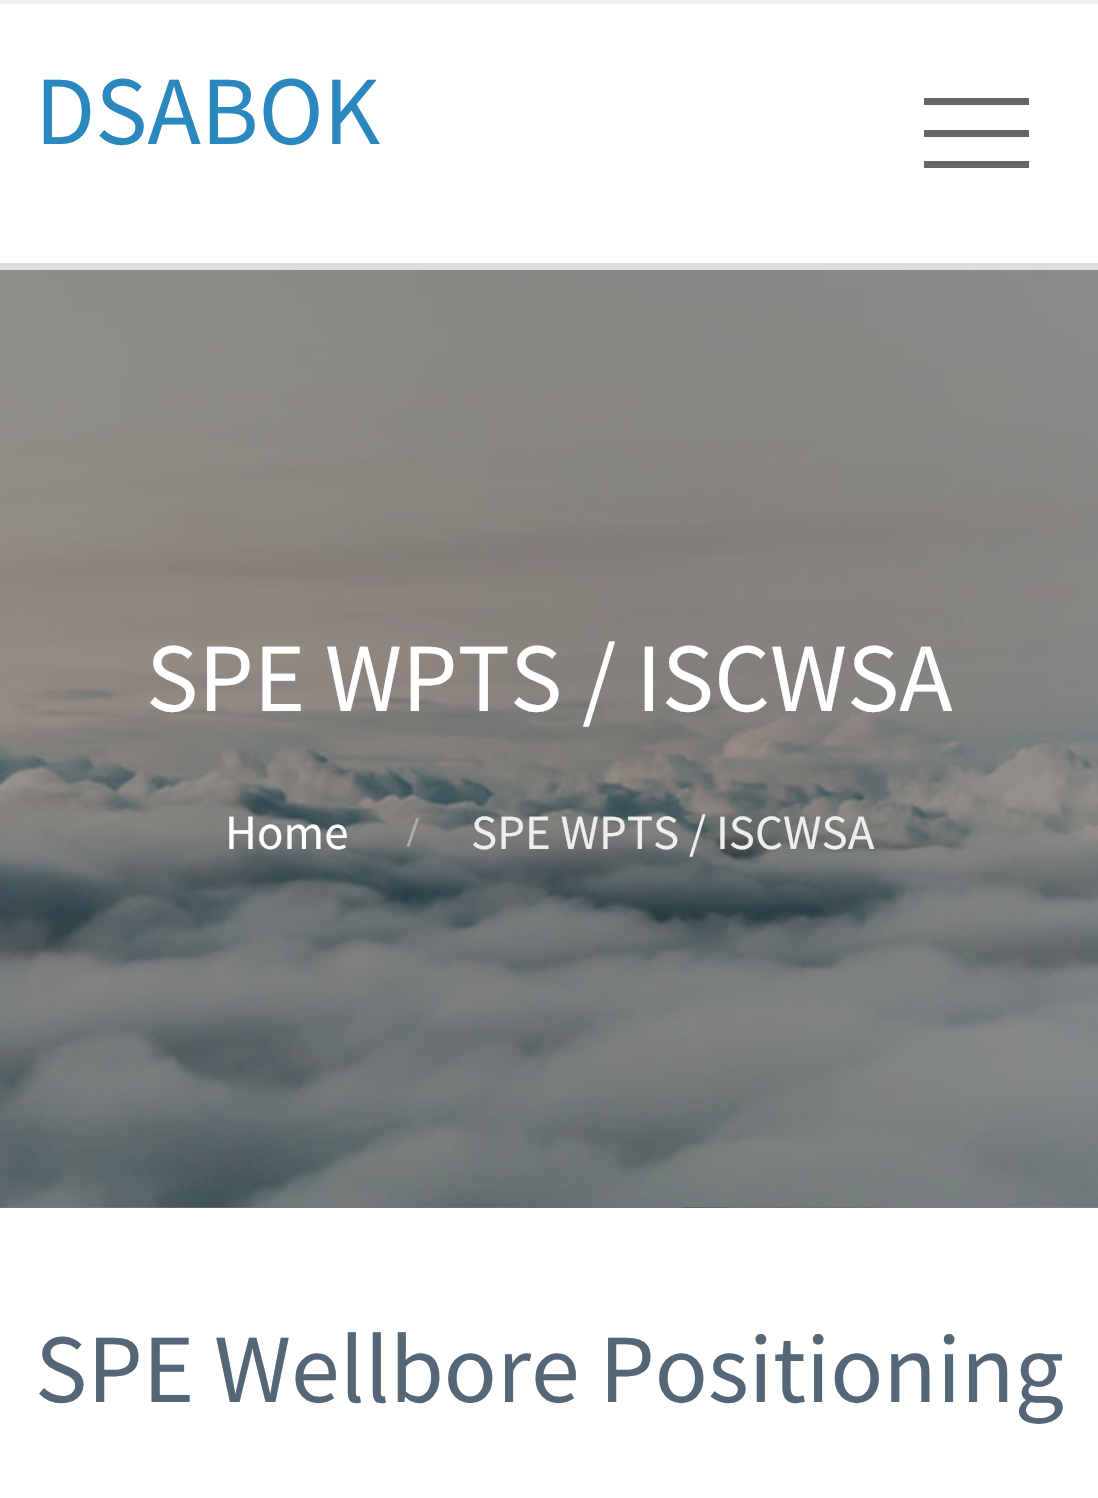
void draw(SkCanvas* canvas) {
	SkPaint paint;
	paint.setAntiAlias(true);
	canvas->clear(0xffffffff);
	canvas->drawImageRect(SkImages::DeferredFromEncodedData(SkData::MakeFromFileName("img1.png")), SkRect::MakeXYWH(0, 1207, 1098, 1), SkSamplingOptions());
	paint.setColor(0xfff0f0f0);
	canvas->drawRect(SkRect::MakeXYWH(0, 0, 1098, 4), paint);
	paint.setColor(0xffdddddd);
	canvas->drawRect(SkRect::MakeXYWH(0, 263, 1098, 7), paint);
	SkFont f1(fontMgr->matchFamilyStyle("Source Sans Pro", SkFontStyle::Normal()), 98);
	f1.setSubpixel(true);
	paint.setColor(0xff2a88bf);
	canvas->drawString("DSABOK", 35, 144, f1, paint);
	paint.setColor(0xff666666);
	canvas->drawRect(SkRect::MakeXYWH(924, 98, 105, 7), paint);
	canvas->drawRect(SkRect::MakeXYWH(924, 161, 105, 7), paint);
	canvas->drawRect(SkRect::MakeXYWH(924, 130, 105, 7), paint);
	canvas->drawImageRect(SkImages::DeferredFromEncodedData(SkData::MakeFromFileName("img2.png")), SkRect::MakeXYWH(0, 270, 1098, 938), SkSamplingOptions());
	paint.setColor(0x66000000);
	canvas->drawRect(SkRect::MakeXYWH(0, 270, 1098, 938), paint);
	paint.setColor(0xffffffff);
	canvas->drawString("SPE WPTS / ISCWSA", 146, 711, f1, paint);
	SkFont f2(fontMgr->matchFamilyStyle("Source Sans Pro", SkFontStyle::Normal()), 49);
	f2.setSubpixel(true);
	canvas->drawString("Home", 225, 849, f2, paint);
	SkFont f3(fontMgr->matchFamilyStyle("Liberation Serif", SkFontStyle::Bold()), 42);
	f3.setSubpixel(true);
	paint.setColor(0xffadadac);
	canvas->drawString("/", 407, 846, f3, paint);
	paint.setColor(0xffeeeeee);
	canvas->drawString("SPE WPTS / ISCWSA", 471, 849, f2, paint);
	paint.setColor(0xff556677);
	canvas->drawString("SPE Wellbore Positioning", 35, 1402, f1, paint);
}
